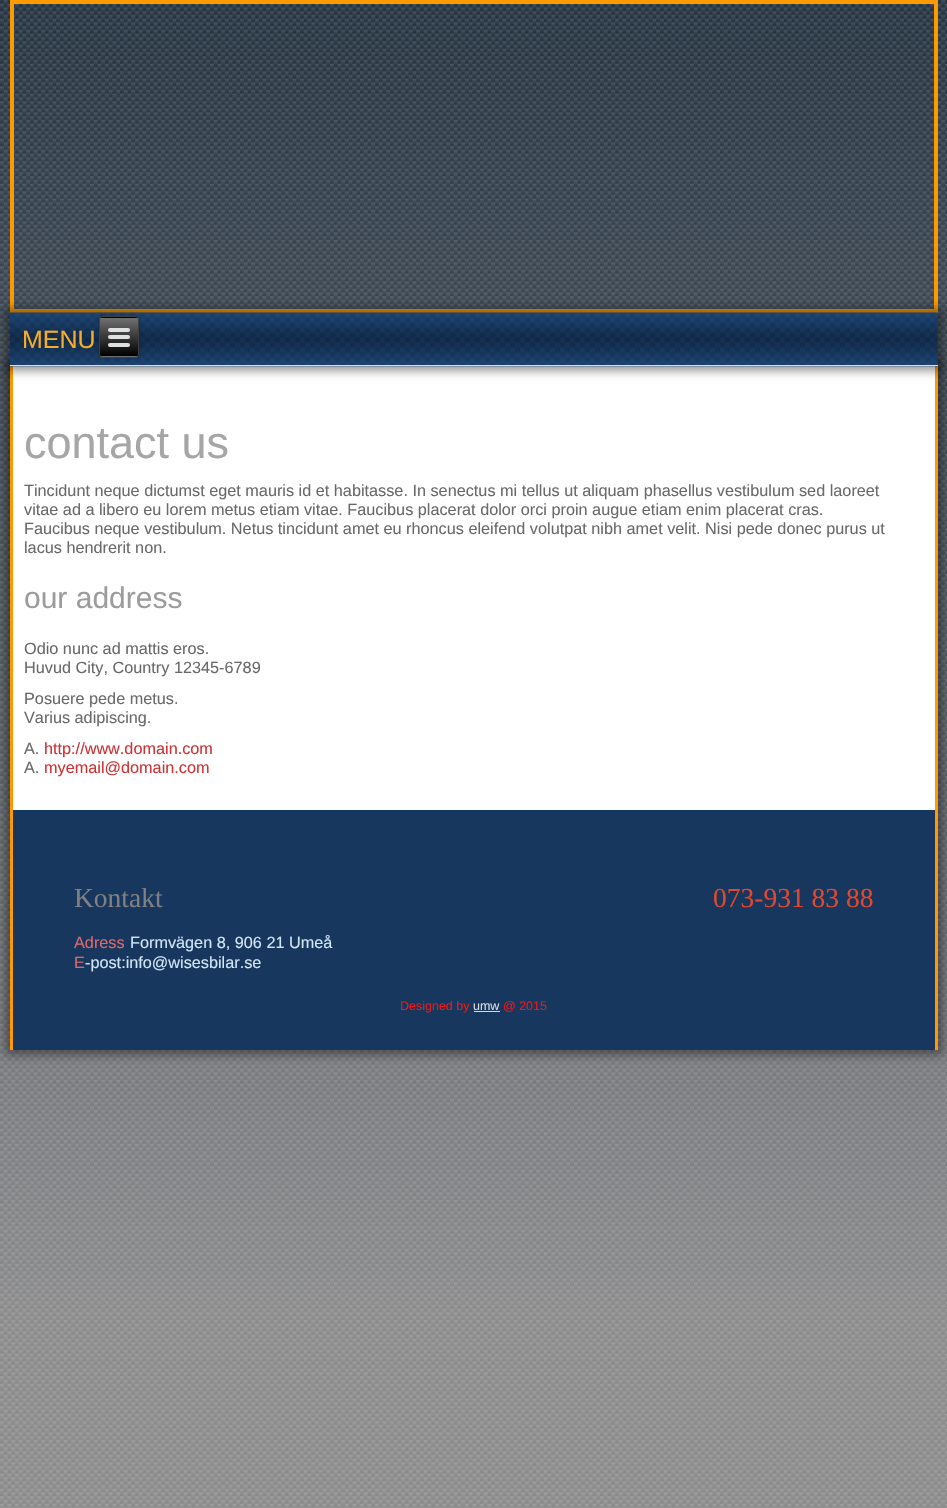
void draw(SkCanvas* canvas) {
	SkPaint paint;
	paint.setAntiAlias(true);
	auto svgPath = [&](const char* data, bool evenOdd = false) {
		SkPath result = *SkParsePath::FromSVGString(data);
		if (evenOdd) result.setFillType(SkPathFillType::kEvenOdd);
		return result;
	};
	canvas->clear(0xffffffff);
	canvas->drawImageRect(SkImages::DeferredFromEncodedData(SkData::MakeFromFileName("img1.png")), SkRect::MakeXYWH(0, 0, 947, 1508), SkSamplingOptions());
	paint.setStroke(true);
	paint.setStrokeWidth(4);
	paint.setColor(0xffff9900);
	canvas->drawRect(SkRect::MakeXYWH(12, 2, 924, 309), paint);
	paint.setStroke(false);
	paint.setColor(0x66000000);
	paint.setMaskFilter(SkMaskFilter::MakeBlur(kNormal_SkBlurStyle, 4.5));
	canvas->drawRect(SkRect::MakeXYWH(5, 361, 938, 694), paint);
	paint.setMaskFilter(nullptr);
	paint.setColor(0xffffffff);
	canvas->drawRect(SkRect::MakeXYWH(13, 366, 922, 444), paint);
	paint.setColor(0xffff9900);
	canvas->drawRect(SkRect::MakeXYWH(935, 366, 3, 684), paint);
	canvas->drawRect(SkRect::MakeXYWH(10, 366, 3, 684), paint);
	paint.setColor(0x66000000);
	paint.setMaskFilter(SkMaskFilter::MakeBlur(kNormal_SkBlurStyle, 4.5));
	canvas->drawRect(SkRect::MakeXYWH(5, 308, 938, 63), paint);
	paint.setMaskFilter(nullptr);
	canvas->drawImageRect(SkImages::DeferredFromEncodedData(SkData::MakeFromFileName("img2.png")), SkRect::MakeXYWH(10, 312, 928, 55), SkSamplingOptions());
	paint.setColor(0xffe0e0e0);
	canvas->drawRect(SkRect::MakeXYWH(10, 365, 928, 1), paint);
	SkFont f1(fontMgr->matchFamilyStyle("Liberation Sans", SkFontStyle::Normal()), 25);
	f1.setSubpixel(true);
	paint.setColor(0xfff6ad2c);
	canvas->drawString("MENU", 22, 348, f1, paint);
	paint.setColor(0x33000000);
	paint.setMaskFilter(SkMaskFilter::MakeBlur(kNormal_SkBlurStyle, 2));
	canvas->drawRoundRect(SkRect::MakeXYWH(99, 316, 40, 42), 4, 4, paint);
	paint.setMaskFilter(nullptr);
	canvas->save();
	canvas->clipPath(svgPath("M103 316H135C137 316 139 318 139 320V354C139 356 137 358 135 358H103C101 358 99 356 99 354V320C99 318 101 316 103 316Z"), true);
	{
		const SkColor colors[] = {0xff707070, 0xff000000};
		const float stops[] = {0, 1};
		const SkPoint ends[] = {{119, 279}, {119, 318}};
		paint.setShader(SkGradientShader::MakeLinear(ends, colors, stops, 2, SkTileMode::kClamp));
		paint.setAlpha(255);
	}
	canvas->drawRect(SkRect::MakeXYWH(99, 316, 40, 2), paint);
	{
		const SkColor colors[] = {0xff707070, 0xff000000};
		const float stops[] = {0, 1};
		const SkPoint ends[] = {{119, 318}, {119, 356}};
		paint.setShader(SkGradientShader::MakeLinear(ends, colors, stops, 2, SkTileMode::kClamp));
		paint.setAlpha(255);
	}
	canvas->drawRect(SkRect::MakeXYWH(99, 318, 40, 38), paint);
	{
		const SkColor colors[] = {0xff707070, 0xff000000};
		const float stops[] = {0, 1};
		const SkPoint ends[] = {{119, 356}, {119, 395}};
		paint.setShader(SkGradientShader::MakeLinear(ends, colors, stops, 2, SkTileMode::kClamp));
		paint.setAlpha(255);
	}
	canvas->drawRect(SkRect::MakeXYWH(99, 356, 40, 2), paint);
	canvas->restore();
	paint.setStroke(true);
	paint.setStrokeWidth(1);
	paint.setShader(nullptr);
	paint.setColor(0xff404040);
	canvas->drawRoundRect(SkRect::MakeXYWH(99.5, 316.5, 39, 41), 3.5, 3.5, paint);
	paint.setStroke(false);
	paint.setColor(0xffe0e0e0);
	canvas->drawRoundRect(SkRect::MakeXYWH(108, 328, 22, 4), 2, 2, paint);
	canvas->drawRoundRect(SkRect::MakeXYWH(108, 335, 22, 4), 2, 2, paint);
	canvas->drawRoundRect(SkRect::MakeXYWH(108, 343, 22, 4), 2, 2, paint);
	SkFont f2(fontMgr->matchFamilyStyle("Liberation Sans", SkFontStyle::Normal()), 45);
	f2.setSubpixel(true);
	paint.setColor(0xffa6a6a6);
	canvas->drawString("contact us", 24, 458, f2, paint);
	SkFont f3(fontMgr->matchFamilyStyle("Liberation Sans", SkFontStyle::Normal()), 16.25);
	f3.setSubpixel(true);
	paint.setColor(0xff696969);
	canvas->drawString("Tincidunt neque dictumst eget mauris id et habitasse. In senectus mi tellus ut aliquam phasellus vestibulum sed laoreet", 24, 496, f3, paint);
	canvas->drawString("vitae ad a libero eu lorem metus etiam vitae. Faucibus placerat dolor orci proin augue etiam enim placerat cras.", 24, 515, f3, paint);
	canvas->drawString("Faucibus neque vestibulum. Netus tincidunt amet eu rhoncus eleifend volutpat nibh amet velit. Nisi pede donec purus ut", 24, 534, f3, paint);
	canvas->drawString("lacus hendrerit non.", 24, 553, f3, paint);
	SkFont f4(fontMgr->matchFamilyStyle("Liberation Sans", SkFontStyle::Normal()), 30);
	f4.setSubpixel(true);
	paint.setColor(0xff9c9c9c);
	canvas->drawString("our address", 24, 608, f4, paint);
	paint.setColor(0xff696969);
	canvas->drawString("Odio nunc ad mattis eros.", 24, 654, f3, paint);
	canvas->drawString("Huvud City, Country 12345-6789", 24, 673, f3, paint);
	canvas->drawString("Posuere pede metus.", 24, 704, f3, paint);
	canvas->drawString("Varius adipiscing.", 24, 723, f3, paint);
	canvas->drawString("A.", 24, 754, f3, paint);
	paint.setColor(0xffcf3033);
	canvas->drawString("http://www.domain.com", 44, 754, f3, paint);
	paint.setColor(0xff696969);
	canvas->drawString("A.", 24, 773, f3, paint);
	paint.setColor(0xffcf3033);
	canvas->drawString("myemail@domain.com", 44, 773, f3, paint);
	paint.setColor(0xff17375e);
	canvas->drawRect(SkRect::MakeXYWH(13, 810, 922, 240), paint);
	SkFont f5(fontMgr->matchFamilyStyle("Liberation Serif", SkFontStyle::Normal()), 27.5);
	f5.setSubpixel(true);
	paint.setColor(0xff808080);
	canvas->drawString("Kontakt", 74, 907, f5, paint);
	paint.setColor(0xffdc6a6c);
	canvas->drawString("Adress", 74, 948, f3, paint);
	paint.setColor(0xffd1e5f5);
	canvas->drawString("Formvägen 8, 906 21 Umeå", 130, 948, f3, paint);
	paint.setColor(0xffdc6a6c);
	canvas->drawString("E", 74, 968, f3, paint);
	paint.setColor(0xffd1e5f5);
	canvas->drawString("-post:info@wisesbilar.se", 85, 968, f3, paint);
	paint.setColor(0xffe1482d);
	canvas->drawString("073-931 83 88", 713, 907, f5, paint);
	SkFont f6(fontMgr->matchFamilyStyle("Liberation Sans", SkFontStyle::Normal()), 12.5);
	f6.setSubpixel(true);
	paint.setColor(0xffed1818);
	canvas->drawString("Designed by", 400, 1010, f6, paint);
	paint.setColor(0xffdbdbdb);
	canvas->drawString("umw", 473, 1010, f6, paint);
	canvas->drawRect(SkRect::MakeXYWH(474, 1011, 26, 1), paint);
	paint.setColor(0xffed1818);
	canvas->drawString("@ 2015", 503, 1010, f6, paint);
}
